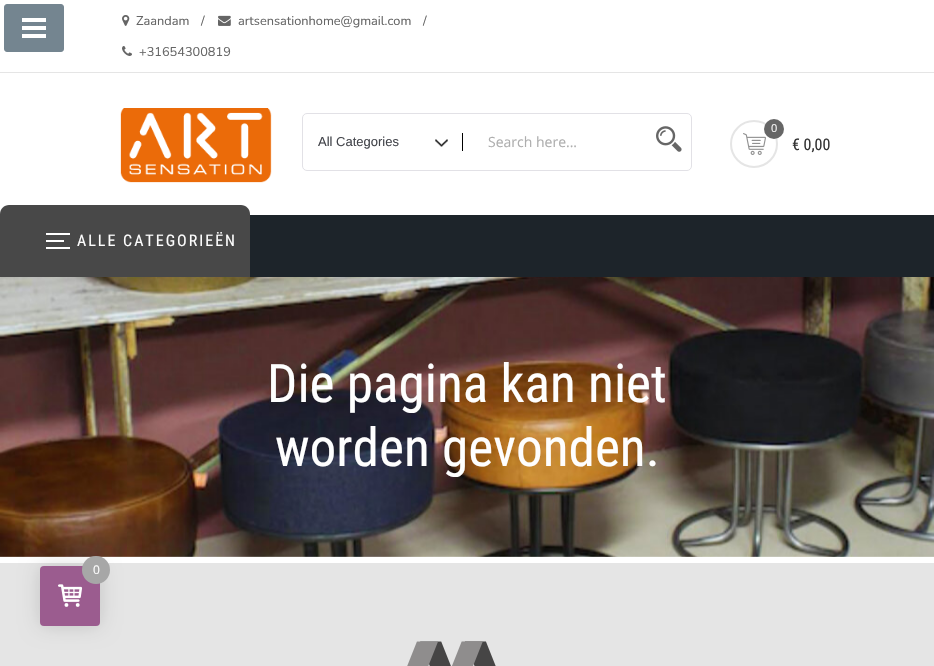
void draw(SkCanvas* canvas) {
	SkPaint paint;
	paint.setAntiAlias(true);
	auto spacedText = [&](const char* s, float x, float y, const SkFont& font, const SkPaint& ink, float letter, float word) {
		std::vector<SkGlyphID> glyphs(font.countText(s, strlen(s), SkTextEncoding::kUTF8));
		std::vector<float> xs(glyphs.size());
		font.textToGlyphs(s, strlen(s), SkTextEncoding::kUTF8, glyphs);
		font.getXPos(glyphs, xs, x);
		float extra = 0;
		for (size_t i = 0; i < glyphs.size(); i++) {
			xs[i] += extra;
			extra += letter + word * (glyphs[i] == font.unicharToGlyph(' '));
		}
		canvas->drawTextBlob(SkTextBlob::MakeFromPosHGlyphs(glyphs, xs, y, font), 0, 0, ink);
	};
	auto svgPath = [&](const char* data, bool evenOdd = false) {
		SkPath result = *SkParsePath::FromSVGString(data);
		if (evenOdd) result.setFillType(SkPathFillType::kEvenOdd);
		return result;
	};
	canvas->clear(0xffe5e5e5);
	paint.setColor(0xffffffff);
	canvas->drawRect(SkRect::MakeXYWH(0, 0, 934, 563), paint);
	paint.setColor(0xffe5e5e5);
	canvas->drawRect(SkRect::MakeXYWH(0, 72, 934, 1), paint);
	canvas->drawImageRect(SkImages::DeferredFromEncodedData(SkData::MakeFromFileName("img1.png")), SkRect::MakeXYWH(122, 15, 8, 11), SkSamplingOptions());
	SkFont f1(fontMgr->matchFamilyStyle("Nunito", SkFontStyle::Normal()), 12.75);
	f1.setSubpixel(true);
	paint.setColor(0xff656565);
	canvas->drawString("Zaandam", 136, 25, f1, paint);
	canvas->drawString("/", 201, 25, f1, paint);
	canvas->drawImageRect(SkImages::DeferredFromEncodedData(SkData::MakeFromFileName("img2.png")), SkRect::MakeXYWH(218, 15, 13, 11), SkSamplingOptions());
	canvas->drawString("artsensationhome@gmail.com", 238, 25, f1, paint);
	canvas->drawString("/", 423, 25, f1, paint);
	canvas->drawImageRect(SkImages::DeferredFromEncodedData(SkData::MakeFromFileName("img3.png")), SkRect::MakeXYWH(122, 46, 10, 10), SkSamplingOptions());
	canvas->drawString("+31654300819", 139, 56, f1, paint);
	canvas->drawImageRect(SkImages::DeferredFromEncodedData(SkData::MakeFromFileName("img4.png")), SkRect::MakeXYWH(120, 108, 152, 75), SkSamplingOptions());
	paint.setStroke(true);
	paint.setStrokeWidth(1);
	paint.setColor(0xffe2e1e6);
	canvas->drawRoundRect(SkRect::MakeXYWH(302.5, 113.5, 389, 57), 4.5, 4.5, paint);
	SkFont f2(fontMgr->matchFamilyStyle("Liberation Sans", SkFontStyle::Normal()), 13);
	f2.setSubpixel(true);
	paint.setStroke(false);
	paint.setColor(0xff43454b);
	canvas->drawString("All Categories", 318, 146, f2, paint);
	canvas->drawImageRect(SkImages::DeferredFromEncodedData(SkData::MakeFromFileName("img5.png")), SkRect::MakeXYWH(435, 139, 13, 8), SkSamplingOptions());
	paint.setColor(0xff000000);
	canvas->drawRect(SkRect::MakeXYWH(462, 133, 1, 18), paint);
	SkFont f3(fontMgr->matchFamilyStyle("Open Sans", SkFontStyle::Normal()), 14);
	f3.setSubpixel(true);
	paint.setColor(0xffaeaeae);
	canvas->drawString("Search here...", 488, 147, f3, paint);
	canvas->drawImageRect(SkImages::DeferredFromEncodedData(SkData::MakeFromFileName("img6.png")), SkRect::MakeXYWH(656, 126, 26, 26), SkSamplingOptions());
	paint.setStroke(true);
	paint.setStrokeWidth(2);
	paint.setColor(0xffe5e5e5);
	canvas->drawCircle(754, 144, 23, paint);
	canvas->drawImageRect(SkImages::DeferredFromEncodedData(SkData::MakeFromFileName("img7.png")), SkRect::MakeXYWH(743, 133, 23, 22), SkSamplingOptions());
	paint.setStroke(false);
	paint.setColor(0xff666666);
	canvas->drawCircle(774, 129, 10, paint);
	SkFont f4(fontMgr->matchFamilyStyle("Open Sans", SkFontStyle::Normal()), 11);
	f4.setSubpixel(true);
	paint.setColor(0xfff4f4f4);
	canvas->drawString("0", 771, 132, f4, paint);
	SkFont f5(fontMgr->matchFamilyStyle("Roboto Condensed", SkFontStyle::Normal()), 16);
	f5.setSubpixel(true);
	paint.setColor(0xff333333);
	canvas->drawString("€ 0,00", 792, 150, f5, paint);
	paint.setColor(0xff1d242a);
	canvas->drawRect(SkRect::MakeXYWH(250, 215, 684, 62), paint);
	paint.setColor(0xff748590);
	canvas->drawRoundRect(SkRect::MakeXYWH(4.5, 4.5, 59, 47), 2.5, 2.5, paint);
	paint.setStroke(true);
	paint.setStrokeWidth(1);
	canvas->drawRoundRect(SkRect::MakeXYWH(4.5, 4.5, 59, 47), 2.5, 2.5, paint);
	paint.setStroke(false);
	paint.setColor(0xffffffff);
	canvas->drawRect(SkRect::MakeXYWH(22, 26, 24, 4), paint);
	canvas->drawRect(SkRect::MakeXYWH(22, 18, 24, 4), paint);
	canvas->drawRect(SkRect::MakeXYWH(22, 34, 24, 4), paint);
	paint.setColor(0xff484848);
	canvas->drawPath(svgPath("M9 205H241C246 205 250 209 250 214V277H0V214C0 209 4 205 9 205Z"), paint);
	paint.setColor(0xffffffff);
	canvas->drawRect(SkRect::MakeXYWH(46, 240, 18, 2), paint);
	canvas->drawRect(SkRect::MakeXYWH(46, 233, 24, 2), paint);
	canvas->drawRect(SkRect::MakeXYWH(46, 247, 24, 2), paint);
	paint.setColor(0xfffefefe);
	spacedText("ALLE CATEGORIEËN", 77, 246, f5, paint, 2, 0);
	canvas->drawImageRect(SkImages::DeferredFromEncodedData(SkData::MakeFromFileName("img8.png")), SkRect::MakeXYWH(0, 277, 934, 280), SkSamplingOptions());
	SkFont f6(fontMgr->matchFamilyStyle("Roboto Condensed", SkFontStyle::Normal()), 53.25);
	f6.setSubpixel(true);
	canvas->drawString("Die pagina kan niet", 267, 402, f6, paint);
	canvas->drawString("worden gevonden.", 275, 466, f6, paint);
	canvas->drawImageRect(SkImages::DeferredFromEncodedData(SkData::MakeFromFileName("img9.png")), SkRect::MakeXYWH(407, 641, 89, 25), SkSamplingOptions());
	paint.setColor(0x26000000);
	paint.setMaskFilter(SkMaskFilter::MakeBlur(kNormal_SkBlurStyle, 10));
	canvas->drawRoundRect(SkRect::MakeXYWH(40, 566, 60, 60), 4, 4, paint);
	paint.setMaskFilter(nullptr);
	paint.setColor(0xff9b5c8f);
	canvas->drawRoundRect(SkRect::MakeXYWH(40, 566, 60, 60), 4, 4, paint);
	paint.setColor(0xffa7a7a7);
	canvas->drawCircle(96, 570, 14, paint);
	SkFont f7(fontMgr->matchFamilyStyle("Open Sans", SkFontStyle::Normal()), 12);
	f7.setSubpixel(true);
	paint.setColor(0xfffefefe);
	canvas->drawString("0", 93, 574, f7, paint);
	canvas->drawImageRect(SkImages::DeferredFromEncodedData(SkData::MakeFromFileName("img10.png")), SkRect::MakeXYWH(58, 584, 25, 23), SkSamplingOptions());
}
